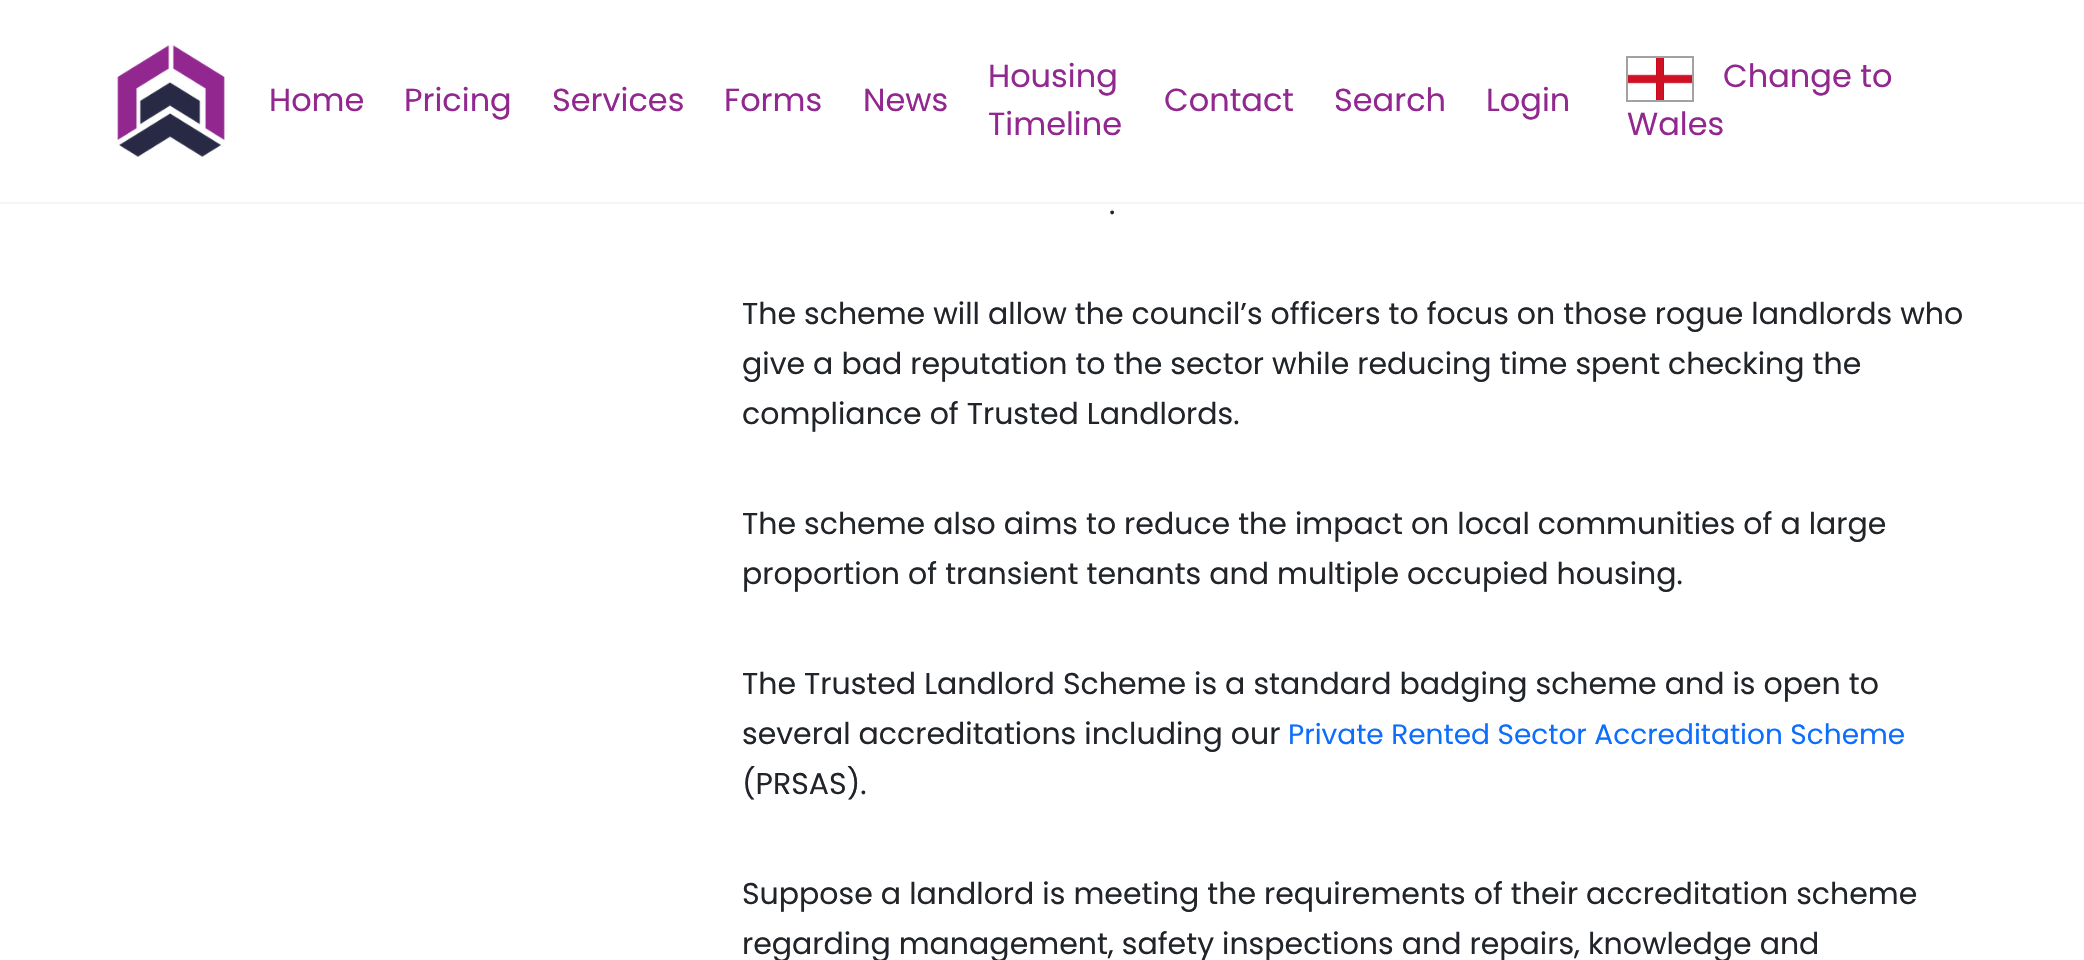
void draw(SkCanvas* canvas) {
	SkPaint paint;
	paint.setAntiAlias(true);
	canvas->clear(0xffffffff);
	paint.setColor(0xfff5f5f5);
	canvas->drawRect(SkRect::MakeXYWH(0, 202, 2084, 2), paint);
	canvas->drawImageRect(SkImages::DeferredFromEncodedData(SkData::MakeFromFileName("img1.png")), SkRect::MakeXYWH(117, 45, 108, 112), SkSamplingOptions());
	SkFont f1(fontMgr->matchFamilyStyle("Poppins", SkFontStyle::Normal()), 32);
	f1.setSubpixel(true);
	paint.setColor(0xff91278f);
	canvas->drawString("Home", 269, 111, f1, paint);
	canvas->drawString("Pricing", 404, 111, f1, paint);
	canvas->drawString("Services", 552, 111, f1, paint);
	canvas->drawString("Forms", 724, 111, f1, paint);
	canvas->drawString("News", 863, 111, f1, paint);
	canvas->drawString("Housing", 988, 87, f1, paint);
	canvas->drawString("Timeline", 988, 135, f1, paint);
	canvas->drawString("Contact", 1164, 111, f1, paint);
	canvas->drawString("Search", 1334, 111, f1, paint);
	canvas->drawString("Login", 1486, 111, f1, paint);
	paint.setStroke(true);
	paint.setStrokeWidth(2);
	paint.setColor(0xffa2a2a2);
	canvas->drawRect(SkRect::MakeXYWH(1627, 57, 66, 44), paint);
	canvas->drawImageRect(SkImages::DeferredFromEncodedData(SkData::MakeFromFileName("img2.png")), SkRect::MakeXYWH(1628, 58, 64, 42), SkSamplingOptions());
	paint.setStroke(false);
	paint.setColor(0xff91278f);
	canvas->drawString("Change to", 1723, 87, f1, paint);
	canvas->drawString("Wales", 1627, 135, f1, paint);
	SkFont f2(fontMgr->matchFamilyStyle("Poppins", SkFontStyle::Normal()), 30);
	f2.setSubpixel(true);
	paint.setColor(0xff212529);
	canvas->drawString(".", 1109, 214, f2, paint);
	canvas->drawString("The scheme will allow the council’s officers to focus on those rogue landlords who", 742, 324, f2, paint);
	canvas->drawString("give a bad reputation to the sector while reducing time spent checking the", 742, 374, f2, paint);
	canvas->drawString("compliance of Trusted Landlords.", 742, 424, f2, paint);
	canvas->drawString("The scheme also aims to reduce the impact on local communities of a large", 742, 534, f2, paint);
	canvas->drawString("proportion of transient tenants and multiple occupied housing.", 742, 584, f2, paint);
	canvas->drawString("The Trusted Landlord Scheme is a standard badging scheme and is open to", 742, 694, f2, paint);
	canvas->drawString("several accreditations including our", 742, 744, f2, paint);
	SkFont f3(fontMgr->matchFamilyStyle("Poppins", SkFontStyle::Normal()), 28);
	f3.setSubpixel(true);
	paint.setColor(0xff0d6efd);
	canvas->drawString("Private Rented Sector Accreditation Scheme", 1288, 744, f3, paint);
	paint.setColor(0xff212529);
	canvas->drawString("(PRSAS).", 742, 794, f2, paint);
	canvas->drawString("Suppose a landlord is meeting the requirements of their accreditation scheme", 742, 904, f2, paint);
	canvas->drawString("regarding management, safety inspections and repairs, knowledge and", 742, 954, f2, paint);
}
